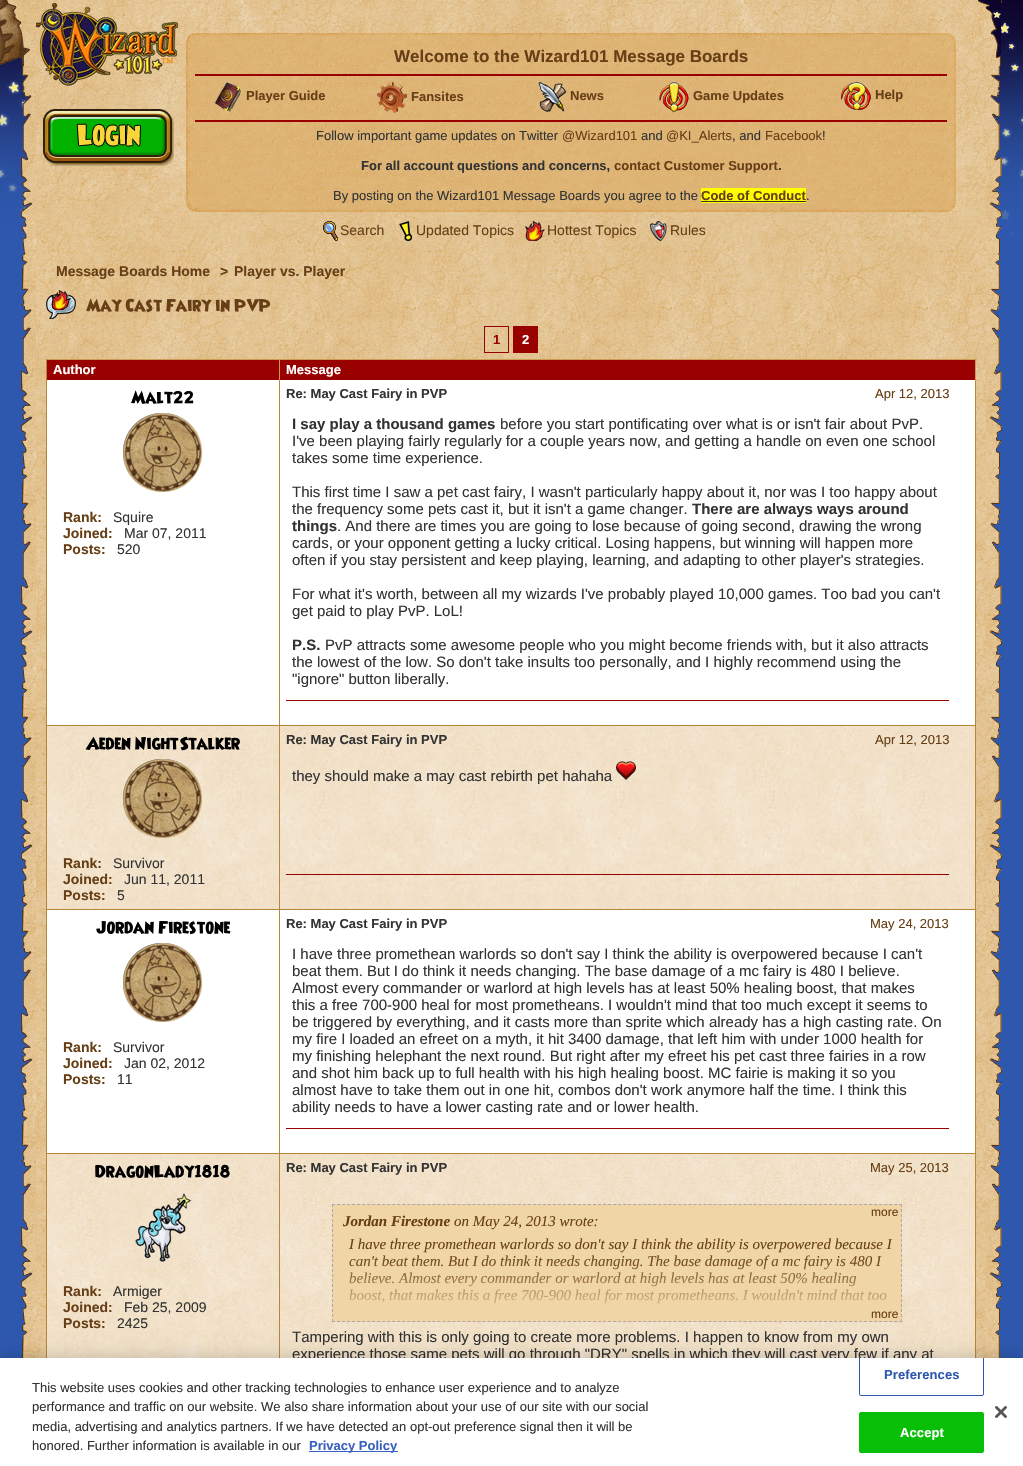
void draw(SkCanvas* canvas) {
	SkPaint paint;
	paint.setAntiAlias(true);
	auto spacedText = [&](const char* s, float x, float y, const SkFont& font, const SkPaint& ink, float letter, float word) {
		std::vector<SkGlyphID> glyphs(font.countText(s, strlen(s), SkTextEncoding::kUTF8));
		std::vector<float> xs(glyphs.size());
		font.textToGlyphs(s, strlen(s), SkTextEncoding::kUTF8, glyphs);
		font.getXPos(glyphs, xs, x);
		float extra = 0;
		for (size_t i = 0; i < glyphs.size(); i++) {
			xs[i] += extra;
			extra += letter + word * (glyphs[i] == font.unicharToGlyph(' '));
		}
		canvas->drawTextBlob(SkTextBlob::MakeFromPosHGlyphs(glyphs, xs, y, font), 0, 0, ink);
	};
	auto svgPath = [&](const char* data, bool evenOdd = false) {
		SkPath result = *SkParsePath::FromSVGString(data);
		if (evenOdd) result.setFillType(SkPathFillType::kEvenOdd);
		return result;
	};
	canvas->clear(0xff2e58ae);
	canvas->drawImageRect(SkImages::DeferredFromEncodedData(SkData::MakeFromFileName("img1.png")), SkRect::MakeXYWH(0, 0, 1023, 241), SkSamplingOptions());
	canvas->drawImageRect(SkImages::DeferredFromEncodedData(SkData::MakeFromFileName("img2.png")), SkRect::MakeXYWH(21, 61, 15, 1297), SkSamplingOptions());
	canvas->drawImageRect(SkImages::DeferredFromEncodedData(SkData::MakeFromFileName("img3.png")), SkRect::MakeXYWH(986, 0, 16, 1358), SkSamplingOptions());
	canvas->drawImageRect(SkImages::DeferredFromEncodedData(SkData::MakeFromFileName("img4.png")), SkRect::MakeXYWH(0, 0, 857, 66), SkSamplingOptions());
	canvas->drawImageRect(SkImages::DeferredFromEncodedData(SkData::MakeFromFileName("img5.png")), SkRect::MakeXYWH(857, 0, 144, 66), SkSamplingOptions());
	canvas->drawImageRect(SkImages::DeferredFromEncodedData(SkData::MakeFromFileName("img6.png")), SkRect::MakeXYWH(36, 66, 950, 1292), SkSamplingOptions());
	canvas->drawImageRect(SkImages::DeferredFromEncodedData(SkData::MakeFromFileName("img7.png")), SkRect::MakeXYWH(36, 3, 142, 83), SkSamplingOptions());
	canvas->drawImageRect(SkImages::DeferredFromEncodedData(SkData::MakeFromFileName("img8.png")), SkRect::MakeXYWH(43, 109, 131, 57), SkSamplingOptions());
	canvas->drawImageRect(SkImages::DeferredFromEncodedData(SkData::MakeFromFileName("img9.png")), SkRect::MakeXYWH(186, 33, 9, 9), SkSamplingOptions());
	canvas->drawImageRect(SkImages::DeferredFromEncodedData(SkData::MakeFromFileName("img10.png")), SkRect::MakeXYWH(195, 33, 752, 9), SkSamplingOptions());
	canvas->drawImageRect(SkImages::DeferredFromEncodedData(SkData::MakeFromFileName("img11.png")), SkRect::MakeXYWH(947, 33, 9, 9), SkSamplingOptions());
	canvas->drawImageRect(SkImages::DeferredFromEncodedData(SkData::MakeFromFileName("img12.png")), SkRect::MakeXYWH(186, 42, 9, 161), SkSamplingOptions());
	canvas->drawImageRect(SkImages::DeferredFromEncodedData(SkData::MakeFromFileName("img13.png")), SkRect::MakeXYWH(195, 42, 752, 161), SkSamplingOptions());
	SkFont f1(fontMgr->matchFamilyStyle("Liberation Sans", SkFontStyle::Bold()), 17);
	f1.setSubpixel(true);
	paint.setColor(0xff673f16);
	canvas->drawString("Welcome to the Wizard101 Message Boards", 394, 62, f1, paint);
	paint.setColor(0xff990000);
	canvas->drawRect(SkRect::MakeXYWH(195, 74, 752, 2), paint);
	canvas->drawImageRect(SkImages::DeferredFromEncodedData(SkData::MakeFromFileName("img14.png")), SkRect::MakeXYWH(215, 82, 27, 30), SkSamplingOptions());
	SkFont f2(fontMgr->matchFamilyStyle("Liberation Sans", SkFontStyle::Bold()), 13);
	f2.setSubpixel(true);
	paint.setColor(0xff673f16);
	canvas->drawString("Player Guide", 246, 100, f2, paint);
	canvas->drawImageRect(SkImages::DeferredFromEncodedData(SkData::MakeFromFileName("img15.png")), SkRect::MakeXYWH(377, 82, 30, 31), SkSamplingOptions());
	canvas->drawString("Fansites", 411, 101, f2, paint);
	canvas->drawImageRect(SkImages::DeferredFromEncodedData(SkData::MakeFromFileName("img16.png")), SkRect::MakeXYWH(538, 82, 28, 30), SkSamplingOptions());
	canvas->drawString("News", 570, 100, f2, paint);
	canvas->drawImageRect(SkImages::DeferredFromEncodedData(SkData::MakeFromFileName("img17.png")), SkRect::MakeXYWH(659, 82, 30, 30), SkSamplingOptions());
	canvas->drawString("Game Updates", 693, 100, f2, paint);
	canvas->drawImageRect(SkImages::DeferredFromEncodedData(SkData::MakeFromFileName("img18.png")), SkRect::MakeXYWH(841, 82, 30, 28), SkSamplingOptions());
	canvas->drawString("Help", 875, 99, f2, paint);
	paint.setColor(0xff990000);
	canvas->drawRect(SkRect::MakeXYWH(195, 120, 752, 2), paint);
	SkFont f3(fontMgr->matchFamilyStyle("Liberation Sans", SkFontStyle::Normal()), 13);
	f3.setSubpixel(true);
	paint.setColor(0xff333333);
	canvas->drawString("Follow important game updates on Twitter", 316, 140, f3, paint);
	paint.setColor(0xff673f16);
	canvas->drawString("@Wizard101", 562, 140, f3, paint);
	paint.setColor(0xff333333);
	canvas->drawString("and", 641, 140, f3, paint);
	paint.setColor(0xff673f16);
	canvas->drawString("@KI_Alerts", 666, 140, f3, paint);
	paint.setColor(0xff333333);
	canvas->drawString(", and", 732, 140, f3, paint);
	paint.setColor(0xff673f16);
	canvas->drawString("Facebook", 765, 140, f3, paint);
	paint.setColor(0xff333333);
	canvas->drawString("!", 822, 140, f3, paint);
	canvas->drawString("For all account questions and concerns,", 361, 170, f2, paint);
	paint.setColor(0xff673f16);
	canvas->drawString("contact Customer Support", 614, 170, f2, paint);
	paint.setColor(0xff333333);
	canvas->drawString(".", 778, 170, f2, paint);
	canvas->drawString("By posting on the Wizard101 Message Boards you agree to the", 333, 200, f3, paint);
	paint.setColor(0xffffff00);
	canvas->drawRect(SkRect::MakeXYWH(701, 188, 105, 15), paint);
	paint.setColor(0xff673f16);
	canvas->drawString("Code of Conduct", 701, 200, f2, paint);
	paint.setColor(0xff333333);
	canvas->drawRect(SkRect::MakeXYWH(701, 201, 105, 1), paint);
	canvas->drawString(".", 806, 200, f3, paint);
	canvas->drawImageRect(SkImages::DeferredFromEncodedData(SkData::MakeFromFileName("img19.png")), SkRect::MakeXYWH(947, 42, 9, 161), SkSamplingOptions());
	canvas->drawImageRect(SkImages::DeferredFromEncodedData(SkData::MakeFromFileName("img20.png")), SkRect::MakeXYWH(186, 203, 9, 9), SkSamplingOptions());
	canvas->drawImageRect(SkImages::DeferredFromEncodedData(SkData::MakeFromFileName("img21.png")), SkRect::MakeXYWH(195, 203, 752, 9), SkSamplingOptions());
	canvas->drawImageRect(SkImages::DeferredFromEncodedData(SkData::MakeFromFileName("img22.png")), SkRect::MakeXYWH(947, 203, 9, 9), SkSamplingOptions());
	canvas->drawImageRect(SkImages::DeferredFromEncodedData(SkData::MakeFromFileName("img23.png")), SkRect::MakeXYWH(323, 221, 15, 20), SkSamplingOptions());
	SkFont f4(fontMgr->matchFamilyStyle("Liberation Sans", SkFontStyle::Normal()), 14);
	f4.setSubpixel(true);
	paint.setColor(0xff673f16);
	canvas->drawString("Search", 340, 235, f4, paint);
	canvas->drawImageRect(SkImages::DeferredFromEncodedData(SkData::MakeFromFileName("img24.png")), SkRect::MakeXYWH(399, 221, 13, 20), SkSamplingOptions());
	canvas->drawString("Updated Topics", 416, 235, f4, paint);
	canvas->drawImageRect(SkImages::DeferredFromEncodedData(SkData::MakeFromFileName("img25.png")), SkRect::MakeXYWH(525, 221, 20, 20), SkSamplingOptions());
	canvas->drawString("Hottest Topics", 547, 235, f4, paint);
	canvas->drawImageRect(SkImages::DeferredFromEncodedData(SkData::MakeFromFileName("img26.png")), SkRect::MakeXYWH(650, 221, 17, 20), SkSamplingOptions());
	canvas->drawString("Rules", 670, 235, f4, paint);
	SkFont f5(fontMgr->matchFamilyStyle("Liberation Sans", SkFontStyle::Bold()), 14);
	f5.setSubpixel(true);
	canvas->drawString("Message Boards Home", 56, 276, f5, paint);
	canvas->drawString(">", 220, 276, f5, paint);
	canvas->drawString("Player vs. Player", 234, 276, f5, paint);
	canvas->drawImageRect(SkImages::DeferredFromEncodedData(SkData::MakeFromFileName("img27.png")), SkRect::MakeXYWH(46, 290, 30, 29), SkSamplingOptions());
	SkFont f6(fontMgr->matchFamilyStyle("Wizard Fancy", SkFontStyle::Normal()), 16);
	f6.setSubpixel(true);
	canvas->drawString("May Cast Fairy in PVP", 86, 311, f6, paint);
	paint.setStroke(true);
	paint.setStrokeWidth(1);
	paint.setColor(0xff990000);
	canvas->drawRect(SkRect::MakeXYWH(484.5, 326.5, 24, 26), paint);
	paint.setStroke(false);
	canvas->drawString("1", 493, 344, f2, paint);
	canvas->drawRect(SkRect::MakeXYWH(513, 326, 25, 27), paint);
	paint.setColor(0xffffffff);
	canvas->drawString("2", 522, 344, f2, paint);
	paint.setColor(0xff990000);
	canvas->drawRect(SkRect::MakeXYWH(47, 360, 232, 20), paint);
	paint.setColor(0xffcd9a56);
	canvas->drawRect(SkRect::MakeXYWH(46, 359, 930, 1), paint);
	paint.setColor(0xffffffff);
	canvas->drawRect(SkRect::MakeXYWH(47, 380, 928, 345), paint);
	canvas->drawRect(SkRect::MakeXYWH(47, 910, 928, 243), paint);
	paint.setColor(0xffb58637);
	canvas->drawRect(SkRect::MakeXYWH(279, 1153, 1, 205), paint);
	canvas->drawRect(SkRect::MakeXYWH(975, 380, 1, 978), paint);
	canvas->drawRect(SkRect::MakeXYWH(279, 1153, 697, 1), paint);
	canvas->drawRect(SkRect::MakeXYWH(279, 909, 1, 245), paint);
	canvas->drawRect(SkRect::MakeXYWH(279, 909, 697, 1), paint);
	canvas->drawRect(SkRect::MakeXYWH(279, 725, 1, 185), paint);
	canvas->drawRect(SkRect::MakeXYWH(279, 725, 697, 1), paint);
	canvas->drawRect(SkRect::MakeXYWH(279, 380, 1, 346), paint);
	paint.setColor(0xffcd9a56);
	canvas->drawRect(SkRect::MakeXYWH(279, 359, 1, 22), paint);
	paint.setColor(0xffb58637);
	canvas->drawRect(SkRect::MakeXYWH(46, 1153, 1, 205), paint);
	canvas->drawRect(SkRect::MakeXYWH(46, 1153, 234, 1), paint);
	canvas->drawRect(SkRect::MakeXYWH(46, 909, 1, 245), paint);
	canvas->drawRect(SkRect::MakeXYWH(46, 909, 234, 1), paint);
	canvas->drawRect(SkRect::MakeXYWH(46, 725, 1, 185), paint);
	canvas->drawRect(SkRect::MakeXYWH(46, 725, 234, 1), paint);
	canvas->drawRect(SkRect::MakeXYWH(46, 380, 1, 346), paint);
	canvas->drawRect(SkRect::MakeXYWH(46, 359, 1, 22), paint);
	paint.setColor(0xffffffff);
	canvas->drawString("Author", 53, 374, f2, paint);
	paint.setColor(0xff990000);
	canvas->drawRect(SkRect::MakeXYWH(280, 360, 695, 20), paint);
	paint.setColor(0xffcd9a56);
	canvas->drawRect(SkRect::MakeXYWH(975, 359, 1, 22), paint);
	paint.setColor(0xffffffff);
	canvas->drawString("Message", 286, 374, f2, paint);
	paint.setColor(0xff000000);
	canvas->drawString("Malt22", 131, 403, f6, paint);
	canvas->drawImageRect(SkImages::DeferredFromEncodedData(SkData::MakeFromFileName("img28.png")), SkRect::MakeXYWH(123, 413, 79, 79), SkSamplingOptions());
	paint.setColor(0xff673f16);
	canvas->drawString("Rank:", 63, 522, f5, paint);
	paint.setColor(0xff333333);
	canvas->drawString("Squire", 113, 522, f4, paint);
	paint.setColor(0xff673f16);
	canvas->drawString("Joined:", 63, 538, f5, paint);
	paint.setColor(0xff333333);
	canvas->drawString("Mar 07, 2011", 124, 538, f4, paint);
	paint.setColor(0xff673f16);
	canvas->drawString("Posts:", 63, 554, f5, paint);
	paint.setColor(0xff333333);
	canvas->drawString("520", 117, 554, f4, paint);
	canvas->drawString("Re: May Cast Fairy in PVP", 286, 398, f2, paint);
	paint.setColor(0xff673f16);
	canvas->drawString("Apr 12, 2013", 875, 398, f3, paint);
	SkFont f7(fontMgr->matchFamilyStyle("Liberation Sans", SkFontStyle::Bold()), 15);
	f7.setSubpixel(true);
	paint.setColor(0xff333333);
	canvas->drawString("I say play a thousand games", 292, 429, f7, paint);
	SkFont f8(fontMgr->matchFamilyStyle("Liberation Sans", SkFontStyle::Normal()), 15);
	f8.setSubpixel(true);
	canvas->drawString("before you start pontificating over what is or isn't fair about PvP.", 500, 429, f8, paint);
	canvas->drawString("I've been playing fairly regularly for a couple years now, and getting a handle on even one school", 292, 446, f8, paint);
	canvas->drawString("takes some time experience.", 292, 463, f8, paint);
	canvas->drawString("This first time I saw a pet cast fairy, I wasn't particularly happy about it, nor was I too happy about", 292, 497, f8, paint);
	canvas->drawString("the frequency some pets cast it, but it isn't a game changer.", 292, 514, f8, paint);
	canvas->drawString("There are always ways around", 692, 514, f7, paint);
	canvas->drawString("things", 292, 531, f7, paint);
	canvas->drawString(". And there are times you are going to lose because of going second, drawing the wrong", 337, 531, f8, paint);
	canvas->drawString("cards, or your opponent getting a lucky critical. Losing happens, but winning will happen more", 292, 548, f8, paint);
	canvas->drawString("often if you stay persistent and keep playing, learning, and adapting to other player's strategies.", 292, 565, f8, paint);
	canvas->drawString("For what it's worth, between all my wizards I've probably played 10,000 games. Too bad you can't", 292, 599, f8, paint);
	canvas->drawString("get paid to play PvP. LoL!", 292, 616, f8, paint);
	canvas->drawString("P.S.", 292, 650, f7, paint);
	canvas->drawString("PvP attracts some awesome people who you might become friends with, but it also attracts", 325, 650, f8, paint);
	canvas->drawString("the lowest of the low. So don't take insults too personally, and I highly recommend using the", 292, 667, f8, paint);
	canvas->drawString("\"ignore\" button liberally.", 292, 684, f8, paint);
	paint.setColor(0xff990000);
	canvas->drawRect(SkRect::MakeXYWH(286, 700, 663, 1), paint);
	canvas->drawImageRect(SkImages::DeferredFromEncodedData(SkData::MakeFromFileName("img29.png")), SkRect::MakeXYWH(47, 726, 232, 183), SkSamplingOptions());
	canvas->drawImageRect(SkImages::DeferredFromEncodedData(SkData::MakeFromFileName("img30.png")), SkRect::MakeXYWH(53, 732, 220, 171), SkSamplingOptions());
	paint.setColor(0xff000000);
	canvas->drawString("Aeden NightStalker", 86, 749, f6, paint);
	canvas->drawImageRect(SkImages::DeferredFromEncodedData(SkData::MakeFromFileName("img31.png")), SkRect::MakeXYWH(123, 759, 79, 79), SkSamplingOptions());
	paint.setColor(0xff673f16);
	canvas->drawString("Rank:", 63, 868, f5, paint);
	paint.setColor(0xff333333);
	canvas->drawString("Survivor", 113, 868, f4, paint);
	paint.setColor(0xff673f16);
	canvas->drawString("Joined:", 63, 884, f5, paint);
	paint.setColor(0xff333333);
	canvas->drawString("Jun 11, 2011", 124, 884, f4, paint);
	paint.setColor(0xff673f16);
	canvas->drawString("Posts:", 63, 900, f5, paint);
	paint.setColor(0xff333333);
	canvas->drawString("5", 117, 900, f4, paint);
	canvas->drawImageRect(SkImages::DeferredFromEncodedData(SkData::MakeFromFileName("img32.png")), SkRect::MakeXYWH(280, 726, 695, 183), SkSamplingOptions());
	canvas->drawImageRect(SkImages::DeferredFromEncodedData(SkData::MakeFromFileName("img33.png")), SkRect::MakeXYWH(286, 732, 683, 161), SkSamplingOptions());
	canvas->drawString("Re: May Cast Fairy in PVP", 286, 744, f2, paint);
	canvas->drawImageRect(SkImages::DeferredFromEncodedData(SkData::MakeFromFileName("img34.png")), SkRect::MakeXYWH(875, 732, 74, 15), SkSamplingOptions());
	paint.setColor(0xff673f16);
	canvas->drawString("Apr 12, 2013", 875, 744, f3, paint);
	canvas->drawImageRect(SkImages::DeferredFromEncodedData(SkData::MakeFromFileName("img35.png")), SkRect::MakeXYWH(876, 747, 72, 8), SkSamplingOptions());
	paint.setColor(0xff333333);
	canvas->drawString("they should make a may cast rebirth pet hahaha", 292, 781, f8, paint);
	canvas->drawImageRect(SkImages::DeferredFromEncodedData(SkData::MakeFromFileName("img36.png")), SkRect::MakeXYWH(616, 761, 20, 19), SkSamplingOptions());
	paint.setColor(0xff990000);
	canvas->drawRect(SkRect::MakeXYWH(286, 874, 663, 1), paint);
	canvas->drawImageRect(SkImages::DeferredFromEncodedData(SkData::MakeFromFileName("img37.png")), SkRect::MakeXYWH(294, 881, 640, 9), SkSamplingOptions());
	canvas->drawImageRect(SkImages::DeferredFromEncodedData(SkData::MakeFromFileName("img38.png")), SkRect::MakeXYWH(937, 881, 11, 12), SkSamplingOptions());
	paint.setColor(0xff000000);
	canvas->drawString("Jordan Firestone", 96, 933, f6, paint);
	canvas->drawImageRect(SkImages::DeferredFromEncodedData(SkData::MakeFromFileName("img28.png")), SkRect::MakeXYWH(123, 943, 79, 79), SkSamplingOptions());
	paint.setColor(0xff673f16);
	canvas->drawString("Rank:", 63, 1052, f5, paint);
	paint.setColor(0xff333333);
	canvas->drawString("Survivor", 113, 1052, f4, paint);
	paint.setColor(0xff673f16);
	canvas->drawString("Joined:", 63, 1068, f5, paint);
	paint.setColor(0xff333333);
	canvas->drawString("Jan 02, 2012", 124, 1068, f4, paint);
	paint.setColor(0xff673f16);
	canvas->drawString("Posts:", 63, 1084, f5, paint);
	paint.setColor(0xff333333);
	canvas->drawString("11", 117, 1084, f4, paint);
	canvas->drawString("Re: May Cast Fairy in PVP", 286, 928, f2, paint);
	paint.setColor(0xff673f16);
	canvas->drawString("May 24, 2013", 870, 928, f3, paint);
	paint.setColor(0xff333333);
	canvas->drawString("I have three promethean warlords so don't say I think the ability is overpowered because I can't", 292, 959, f8, paint);
	canvas->drawString("beat them. But I do think it needs changing. The base damage of a mc fairy is 480 I believe.", 292, 976, f8, paint);
	canvas->drawString("Almost every commander or warlord at high levels has at least 50% healing boost, that makes", 292, 993, f8, paint);
	canvas->drawString("this a free 700-900 heal for most prometheans. I wouldn't mind that too much except it seems to", 292, 1010, f8, paint);
	canvas->drawString("be triggered by everything, and it casts more than sprite which already has a high casting rate. On", 292, 1027, f8, paint);
	canvas->drawString("my fire I loaded an efreet on a myth, it hit 3400 damage, that left him with under 1000 health for", 292, 1044, f8, paint);
	canvas->drawString("my finishing helephant the next round. But right after my efreet his pet cast three fairies in a row", 292, 1061, f8, paint);
	canvas->drawString("and shot him back up to full health with his high healing boost. MC fairie is making it so you", 292, 1078, f8, paint);
	canvas->drawString("almost have to take them out in one hit, combos don't work anymore half the time. I think this", 292, 1095, f8, paint);
	canvas->drawString("ability needs to have a lower casting rate and or lower health.", 292, 1112, f8, paint);
	paint.setColor(0xff990000);
	canvas->drawRect(SkRect::MakeXYWH(286, 1128, 663, 1), paint);
	canvas->drawImageRect(SkImages::DeferredFromEncodedData(SkData::MakeFromFileName("img39.png")), SkRect::MakeXYWH(47, 1154, 232, 204), SkSamplingOptions());
	canvas->drawImageRect(SkImages::DeferredFromEncodedData(SkData::MakeFromFileName("img30.png")), SkRect::MakeXYWH(53, 1160, 220, 171), SkSamplingOptions());
	paint.setColor(0xff000000);
	canvas->drawString("DragonLady1818", 95, 1177, f6, paint);
	canvas->drawImageRect(SkImages::DeferredFromEncodedData(SkData::MakeFromFileName("img40.png")), SkRect::MakeXYWH(135, 1193, 57, 73), SkSamplingOptions());
	paint.setColor(0xff673f16);
	canvas->drawString("Rank:", 63, 1296, f5, paint);
	paint.setColor(0xff333333);
	canvas->drawString("Armiger", 113, 1296, f4, paint);
	paint.setColor(0xff673f16);
	canvas->drawString("Joined:", 63, 1312, f5, paint);
	paint.setColor(0xff333333);
	canvas->drawString("Feb 25, 2009", 124, 1312, f4, paint);
	paint.setColor(0xff673f16);
	canvas->drawString("Posts:", 63, 1328, f5, paint);
	paint.setColor(0xff333333);
	canvas->drawString("2425", 117, 1328, f4, paint);
	canvas->drawImageRect(SkImages::DeferredFromEncodedData(SkData::MakeFromFileName("img41.png")), SkRect::MakeXYWH(280, 1154, 695, 204), SkSamplingOptions());
	canvas->drawImageRect(SkImages::DeferredFromEncodedData(SkData::MakeFromFileName("img42.png")), SkRect::MakeXYWH(286, 1160, 683, 198), SkSamplingOptions());
	canvas->drawString("Re: May Cast Fairy in PVP", 286, 1172, f2, paint);
	canvas->drawImageRect(SkImages::DeferredFromEncodedData(SkData::MakeFromFileName("img43.png")), SkRect::MakeXYWH(870, 1160, 79, 15), SkSamplingOptions());
	paint.setColor(0xff673f16);
	canvas->drawString("May 25, 2013", 870, 1172, f3, paint);
	canvas->drawImageRect(SkImages::DeferredFromEncodedData(SkData::MakeFromFileName("img44.png")), SkRect::MakeXYWH(870, 1175, 78, 8), SkSamplingOptions());
	paint.setColor(0xfff0d5a5);
	canvas->drawRect(SkRect::MakeXYWH(332, 1204, 570, 118), paint);
	paint.setStroke(true);
	paint.setColor(0xffafa3b5);
	paint.setPathEffect(SkDashPathEffect::Make({{3, 2.02f}}, 0));
	canvas->drawPath(svgPath("M332 1204.5H902"), paint);
	paint.setPathEffect(nullptr);
	paint.setPathEffect(SkDashPathEffect::Make({{3, 2}}, 0));
	canvas->drawPath(svgPath("M901.5 1204V1322"), paint);
	paint.setPathEffect(nullptr);
	paint.setPathEffect(SkDashPathEffect::Make({{3, 2.02f}}, 0));
	canvas->drawPath(svgPath("M332 1321.5H902"), paint);
	paint.setPathEffect(nullptr);
	paint.setPathEffect(SkDashPathEffect::Make({{3, 2}}, 0));
	canvas->drawPath(svgPath("M332.5 1204V1322"), paint);
	paint.setPathEffect(nullptr);
	SkFont f9(fontMgr->matchFamilyStyle("Liberation Sans", SkFontStyle::Normal()), 12);
	f9.setSubpixel(true);
	paint.setStroke(false);
	paint.setColor(0xff673f16);
	canvas->drawString("more", 871, 1216, f9, paint);
	SkFont f10(fontMgr->matchFamilyStyle("Liberation Serif", SkFontStyle::BoldItalic()), 15);
	f10.setSubpixel(true);
	canvas->drawString("Jordan Firestone", 343, 1226, f10, paint);
	SkFont f11(fontMgr->matchFamilyStyle("Liberation Serif", SkFontStyle::Italic()), 15);
	f11.setSubpixel(true);
	canvas->drawString("on May 24, 2013 wrote:", 454, 1226, f11, paint);
	canvas->drawString("I have three promethean warlords so don't say I think the ability is overpowered because I", 349, 1249, f11, paint);
	canvas->drawString("can't beat them. But I do think it needs changing. The base damage of a mc fairy is 480 I", 349, 1266, f11, paint);
	canvas->drawString("believe. Almost every commander or warlord at high levels has at least 50% healing", 349, 1283, f11, paint);
	canvas->drawString("boost, that makes this a free 700-900 heal for most prometheans. I wouldn't mind that too", 349, 1300, f11, paint);
	canvas->save();
	canvas->clipRect(SkRect::MakeXYWH(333, 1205, 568, 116));
	paint.setColor(0xfff0d5a5);
	paint.setMaskFilter(SkMaskFilter::MakeBlur(kNormal_SkBlurStyle, 20));
	canvas->drawRect(SkRect::MakeXYWH(313, 1287, 608, 54), paint);
	paint.setMaskFilter(nullptr);
	canvas->restore();
	paint.setColor(0xff673f16);
	canvas->drawString("more", 871, 1318, f9, paint);
	paint.setColor(0xff333333);
	canvas->drawString("Tampering with this is only going to create more problems. I happen to know from my own", 292, 1342, f8, paint);
	canvas->drawString("experience those same pets will go through \"DRY\" spells in which they will cast very few if any at", 292, 1359, f8, paint);
	paint.setColor(0x33000000);
	paint.setMaskFilter(SkMaskFilter::MakeBlur(kNormal_SkBlurStyle, 9));
	canvas->drawRect(SkRect::MakeXYWH(0, 1358, 1023, 108), paint);
	paint.setMaskFilter(nullptr);
	paint.setColor(0xffffffff);
	canvas->drawRect(SkRect::MakeXYWH(0, 1358, 1023, 108), paint);
	paint.setColor(0xff333333);
	canvas->drawString("This website uses cookies and other tracking technologies to enhance user experience and to analyze", 32, 1392, f3, paint);
	canvas->drawString("performance and traffic on our website. We also share information about your use of our site with our social", 32, 1411, f3, paint);
	canvas->drawString("media, advertising and analytics partners. If we have detected an opt-out preference signal then it will be", 32, 1431, f3, paint);
	canvas->drawString("honored. Further information is available in our", 32, 1450, f3, paint);
	paint.setColor(0xff3860be);
	canvas->drawRect(SkRect::MakeXYWH(309, 1451, 89, 1), paint);
	canvas->drawString("Privacy Policy", 309, 1450, f2, paint);
	canvas->save();
	canvas->clipRect(SkRect::MakeXYWH(0, 1358, 1023, 108));
	paint.setStroke(true);
	paint.setColor(0xff2e58ae);
	canvas->drawRoundRect(SkRect::MakeXYWH(859.5, 1354.5, 124, 41), 1.5, 1.5, paint);
	canvas->restore();
	paint.setStroke(false);
	spacedText("Preferences", 884, 1379, f2, paint, 0.1, 0);
	paint.setColor(0xff06bf06);
	canvas->drawRoundRect(SkRect::MakeXYWH(859.5, 1412.5, 124, 40), 1.5, 1.5, paint);
	paint.setStroke(true);
	canvas->drawRoundRect(SkRect::MakeXYWH(859.5, 1412.5, 124, 40), 1.5, 1.5, paint);
	paint.setStroke(false);
	paint.setColor(0xffffffff);
	spacedText("Accept", 900, 1437, f2, paint, 0.1, 0);
	canvas->drawImageRect(SkImages::DeferredFromEncodedData(SkData::MakeFromFileName("img45.png")), SkRect::MakeXYWH(995, 1406, 12, 12), SkSamplingOptions());
}
